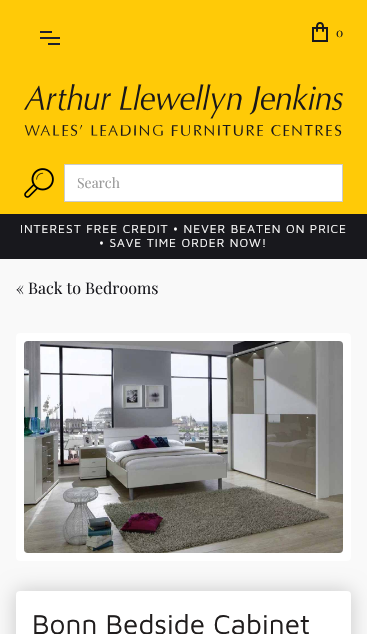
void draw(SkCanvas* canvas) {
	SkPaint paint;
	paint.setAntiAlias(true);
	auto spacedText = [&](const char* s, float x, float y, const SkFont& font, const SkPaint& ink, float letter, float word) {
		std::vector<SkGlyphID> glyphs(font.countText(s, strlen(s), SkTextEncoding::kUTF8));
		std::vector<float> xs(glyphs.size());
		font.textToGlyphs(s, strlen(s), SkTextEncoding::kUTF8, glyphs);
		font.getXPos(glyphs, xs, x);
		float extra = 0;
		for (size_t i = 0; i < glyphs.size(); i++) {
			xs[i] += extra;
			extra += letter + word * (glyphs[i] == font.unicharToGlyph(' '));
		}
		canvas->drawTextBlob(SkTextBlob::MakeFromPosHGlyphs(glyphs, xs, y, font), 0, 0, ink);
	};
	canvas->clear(0xfff9f9f9);
	paint.setColor(0xffffca07);
	canvas->drawRect(SkRect::MakeXYWH(0, 0, 367, 214), paint);
	canvas->drawImageRect(SkImages::DeferredFromEncodedData(SkData::MakeFromFileName("img1.png")), SkRect::MakeXYWH(40, 31, 20, 14), SkSamplingOptions());
	canvas->drawImageRect(SkImages::DeferredFromEncodedData(SkData::MakeFromFileName("img2.png")), SkRect::MakeXYWH(312, 22, 16, 20), SkSamplingOptions());
	SkFont f1(fontMgr->matchFamilyStyle("Playfair Display", SkFontStyle::Normal()), 12);
	f1.setSubpixel(true);
	paint.setColor(0xff18181d);
	canvas->drawString("0", 336, 37, f1, paint);
	canvas->drawImageRect(SkImages::DeferredFromEncodedData(SkData::MakeFromFileName("img3.png")), SkRect::MakeXYWH(24, 84, 319, 52), SkSamplingOptions());
	canvas->drawImageRect(SkImages::DeferredFromEncodedData(SkData::MakeFromFileName("img4.png")), SkRect::MakeXYWH(24, 168, 30, 30), SkSamplingOptions());
	paint.setColor(0xffffffff);
	canvas->drawRect(SkRect::MakeXYWH(64.5, 164.5, 278, 37), paint);
	paint.setStroke(true);
	paint.setStrokeWidth(1);
	paint.setColor(0xffcccccc);
	canvas->drawRect(SkRect::MakeXYWH(64.5, 164.5, 278, 37), paint);
	SkFont f2(fontMgr->matchFamilyStyle("Playfair Display", SkFontStyle::Normal()), 14);
	f2.setSubpixel(true);
	paint.setStroke(false);
	paint.setColor(0xff999999);
	canvas->drawString("Search", 77, 188, f2, paint);
	paint.setColor(0xff18181d);
	canvas->drawRect(SkRect::MakeXYWH(0, 214, 367, 45), paint);
	SkFont f3(fontMgr->matchFamilyStyle("Maven Pro", SkFontStyle::Normal()), 12);
	f3.setSubpixel(true);
	paint.setColor(0xffffffff);
	spacedText("INTEREST FREE CREDIT • NEVER BEATEN ON PRICE", 20, 233, f3, paint, 1, 0);
	spacedText("• SAVE TIME ORDER NOW!", 99, 247, f3, paint, 1, 0);
	SkFont f4(fontMgr->matchFamilyStyle("Playfair Display", SkFontStyle::Normal()), 16);
	f4.setSubpixel(true);
	paint.setColor(0xff18181d);
	canvas->drawString("« Back to Bedrooms", 16, 294, f4, paint);
	paint.setColor(0x33000000);
	paint.setMaskFilter(SkMaskFilter::MakeBlur(kNormal_SkBlurStyle, 10));
	canvas->drawRoundRect(SkRect::MakeXYWH(16, 591, 335, 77), 4, 4, paint);
	paint.setMaskFilter(nullptr);
	paint.setColor(0xffffffff);
	canvas->drawRoundRect(SkRect::MakeXYWH(16, 333, 335, 228), 4, 4, paint);
	canvas->drawImageRect(SkImages::DeferredFromEncodedData(SkData::MakeFromFileName("img5.png")), SkRect::MakeXYWH(24, 341, 319, 212), SkSamplingOptions());
	canvas->drawRoundRect(SkRect::MakeXYWH(16, 591, 335, 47), 4, 4, paint);
	SkFont f5(fontMgr->matchFamilyStyle("Maven Pro", SkFontStyle::Normal()), 28);
	f5.setSubpixel(true);
	paint.setColor(0xff201d1d);
	canvas->drawString("Bonn Bedside Cabinet", 32, 634, f5, paint);
}
